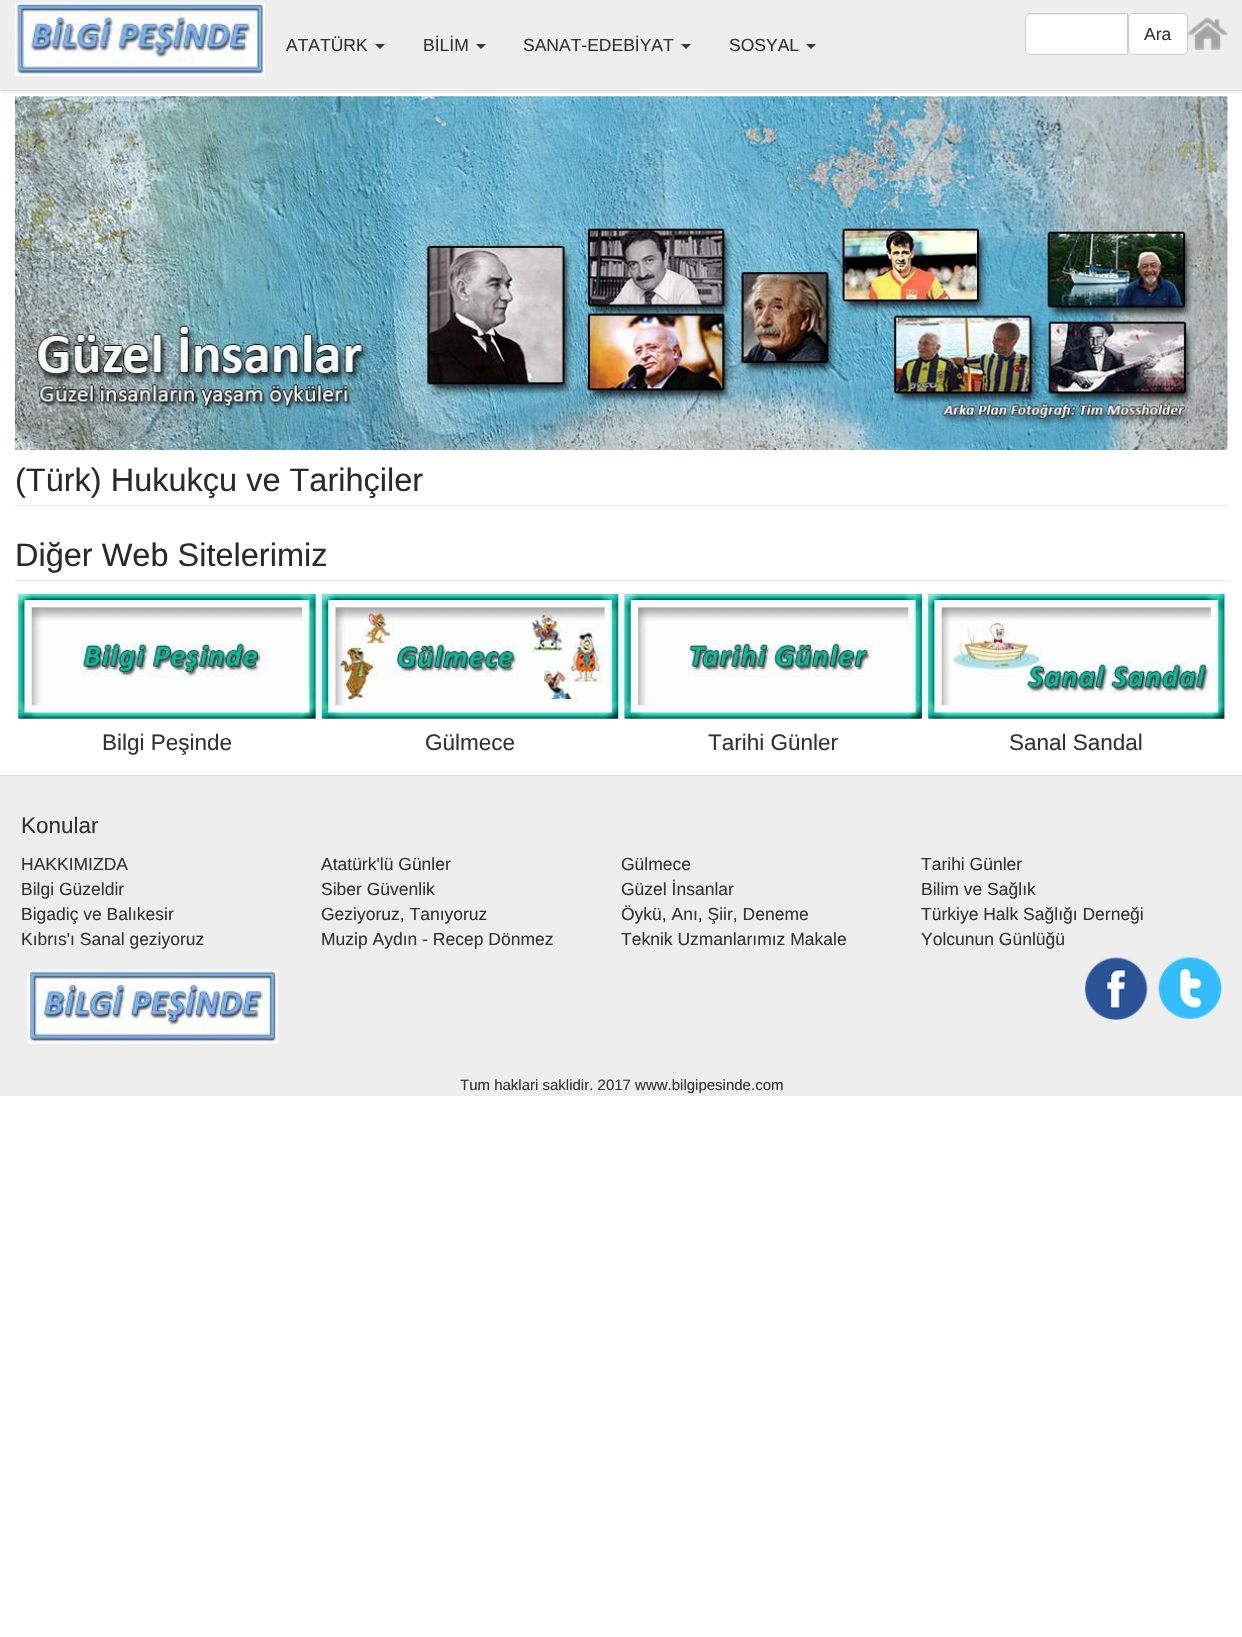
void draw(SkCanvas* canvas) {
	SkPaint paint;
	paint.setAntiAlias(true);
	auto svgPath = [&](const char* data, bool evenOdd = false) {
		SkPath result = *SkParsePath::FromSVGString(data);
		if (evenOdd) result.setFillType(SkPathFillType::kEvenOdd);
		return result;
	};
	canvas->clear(0xffffffff);
	canvas->drawImageRect(SkImages::DeferredFromEncodedData(SkData::MakeFromFileName("img3.png")), SkRect::MakeXYWH(15, 96, 1213, 354), SkSamplingOptions());
	paint.setColor(0x33000000);
	paint.setMaskFilter(SkMaskFilter::MakeBlur(kNormal_SkBlurStyle, 2));
	canvas->drawRect(SkRect::MakeXYWH(1, 0, 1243, 91), paint);
	paint.setMaskFilter(nullptr);
	paint.setColor(0xffeeeeee);
	canvas->drawRect(SkRect::MakeXYWH(0, 0, 1242, 90), paint);
	paint.setColor(0xffdddddd);
	canvas->drawRect(SkRect::MakeXYWH(0, 90, 1242, 1), paint);
	canvas->drawImageRect(SkImages::DeferredFromEncodedData(SkData::MakeFromFileName("img1.png")), SkRect::MakeXYWH(15, 2, 250, 75), SkSamplingOptions());
	SkFont f1(fontMgr->matchFamilyStyle("Liberation Sans", SkFontStyle::Normal()), 17.5);
	f1.setSubpixel(true);
	paint.setColor(0xff333333);
	canvas->drawString("ATATÜRK", 286, 51, f1, paint);
	paint.setColor(0xff383838);
	canvas->drawPath(svgPath("M375 44H385L380 49Z"), paint);
	paint.setColor(0xff333333);
	canvas->drawString("BİLİM", 423, 51, f1, paint);
	paint.setColor(0xff383838);
	canvas->drawPath(svgPath("M476 44H486L481 49Z"), paint);
	paint.setColor(0xff333333);
	canvas->drawString("SANAT-EDEBİYAT", 523, 51, f1, paint);
	paint.setColor(0xff383838);
	canvas->drawPath(svgPath("M681 44H691L686 49Z"), paint);
	paint.setColor(0xff333333);
	canvas->drawString("SOSYAL", 729, 51, f1, paint);
	paint.setColor(0xff383838);
	canvas->drawPath(svgPath("M806 44H816L811 49Z"), paint);
	paint.setColor(0xffffffff);
	canvas->drawPath(svgPath("M1030 13H1128V55H1030C1027 55 1025 53 1025 50V18C1025 15 1027 13 1030 13Z"), paint);
	paint.setColor(0xffececec);
	canvas->drawPath(svgPath("M1030 15H1126V14H1030C1028 14 1026 16 1026 18V19C1026 17 1028 15 1030 15Z"), paint);
	paint.setStroke(true);
	paint.setStrokeWidth(1);
	paint.setColor(0xffcccccc);
	canvas->drawPath(svgPath("M1030 13.5H1127.5V54.5H1030C1027.5 54.5 1025.5 52.5 1025.5 50V18C1025.5 15.5 1027.5 13.5 1030 13.5Z"), paint);
	paint.setStroke(false);
	paint.setColor(0xffffffff);
	canvas->drawRoundRect(SkRect::MakeXYWH(1128.5, 13.5, 59, 41), 4.5, 4.5, paint);
	paint.setStroke(true);
	paint.setColor(0xffcccccc);
	canvas->drawRoundRect(SkRect::MakeXYWH(1128.5, 13.5, 59, 41), 4.5, 4.5, paint);
	paint.setStroke(false);
	paint.setColor(0xff333333);
	canvas->drawString("Ara", 1144, 40, f1, paint);
	canvas->drawImageRect(SkImages::DeferredFromEncodedData(SkData::MakeFromFileName("img2.png")), SkRect::MakeXYWH(1188, 17, 40, 33), SkSamplingOptions());
	paint.setColor(0xffe6e6e6);
	canvas->drawRect(SkRect::MakeXYWH(15, 505, 1213, 1), paint);
	SkFont f2(fontMgr->matchFamilyStyle("Liberation Sans", SkFontStyle::Normal()), 32.5);
	f2.setSubpixel(true);
	paint.setColor(0xff2a2a2a);
	canvas->drawString("(Türk) Hukukçu ve Tarihçiler", 15, 491, f2, paint);
	paint.setColor(0xffe6e6e6);
	canvas->drawRect(SkRect::MakeXYWH(15, 580, 1213, 1), paint);
	paint.setColor(0xff2a2a2a);
	canvas->drawString("Diğer Web Sitelerimiz", 15, 566, f2, paint);
	canvas->drawImageRect(SkImages::DeferredFromEncodedData(SkData::MakeFromFileName("img4.png")), SkRect::MakeXYWH(15, 593, 303, 126), SkSamplingOptions());
	SkFont f3(fontMgr->matchFamilyStyle("Liberation Sans", SkFontStyle::Normal()), 22.5);
	f3.setSubpixel(true);
	paint.setColor(0xff333333);
	canvas->drawString("Bilgi Peşinde", 102, 750, f3, paint);
	canvas->drawImageRect(SkImages::DeferredFromEncodedData(SkData::MakeFromFileName("img5.png")), SkRect::MakeXYWH(318, 593, 303, 126), SkSamplingOptions());
	canvas->drawString("Gülmece", 425, 750, f3, paint);
	canvas->drawImageRect(SkImages::DeferredFromEncodedData(SkData::MakeFromFileName("img6.png")), SkRect::MakeXYWH(621, 593, 303, 126), SkSamplingOptions());
	canvas->drawString("Tarihi Günler", 708, 750, f3, paint);
	canvas->drawImageRect(SkImages::DeferredFromEncodedData(SkData::MakeFromFileName("img7.png")), SkRect::MakeXYWH(925, 593, 302, 126), SkSamplingOptions());
	canvas->drawString("Sanal Sandal", 1009, 750, f3, paint);
	paint.setColor(0xffeeeeee);
	canvas->drawRect(SkRect::MakeXYWH(0, 776, 1242, 320), paint);
	paint.setColor(0xffdddddd);
	canvas->drawRect(SkRect::MakeXYWH(0, 775, 1242, 1), paint);
	paint.setColor(0xff333333);
	canvas->drawString("Konular", 21, 833, f3, paint);
	canvas->drawString("HAKKIMIZDA", 21, 870, f1, paint);
	canvas->drawString("Atatürk'lü Günler", 321, 870, f1, paint);
	canvas->drawString("Gülmece", 621, 870, f1, paint);
	canvas->drawString("Tarihi Günler", 921, 870, f1, paint);
	canvas->drawString("Bilgi Güzeldir", 21, 895, f1, paint);
	canvas->drawString("Siber Güvenlik", 321, 895, f1, paint);
	canvas->drawString("Güzel İnsanlar", 621, 895, f1, paint);
	canvas->drawString("Bilim ve Sağlık", 921, 895, f1, paint);
	canvas->drawString("Bigadiç ve Balıkesir", 21, 920, f1, paint);
	canvas->drawString("Geziyoruz, Tanıyoruz", 321, 920, f1, paint);
	canvas->drawString("Öykü, Anı, Şiir, Deneme", 621, 920, f1, paint);
	canvas->drawString("Türkiye Halk Sağlığı Derneği", 921, 920, f1, paint);
	canvas->drawString("Kıbrıs'ı Sanal geziyoruz", 21, 945, f1, paint);
	canvas->drawString("Muzip Aydın - Recep Dönmez", 321, 945, f1, paint);
	canvas->drawString("Teknik Uzmanlarımız Makale", 621, 945, f1, paint);
	canvas->drawString("Yolcunun Günlüğü", 921, 945, f1, paint);
	canvas->drawImageRect(SkImages::DeferredFromEncodedData(SkData::MakeFromFileName("img8.png")), SkRect::MakeXYWH(27, 970, 251, 74), SkSamplingOptions());
	canvas->drawImageRect(SkImages::DeferredFromEncodedData(SkData::MakeFromFileName("img9.png")), SkRect::MakeXYWH(1085, 957, 63, 63), SkSamplingOptions());
	canvas->drawImageRect(SkImages::DeferredFromEncodedData(SkData::MakeFromFileName("img10.png")), SkRect::MakeXYWH(1158, 957, 64, 62), SkSamplingOptions());
	SkFont f4(fontMgr->matchFamilyStyle("Liberation Sans", SkFontStyle::Normal()), 15);
	f4.setSubpixel(true);
	canvas->drawString("Tum haklari saklidir. 2017 www.bilgipesinde.com", 460, 1090, f4, paint);
}
